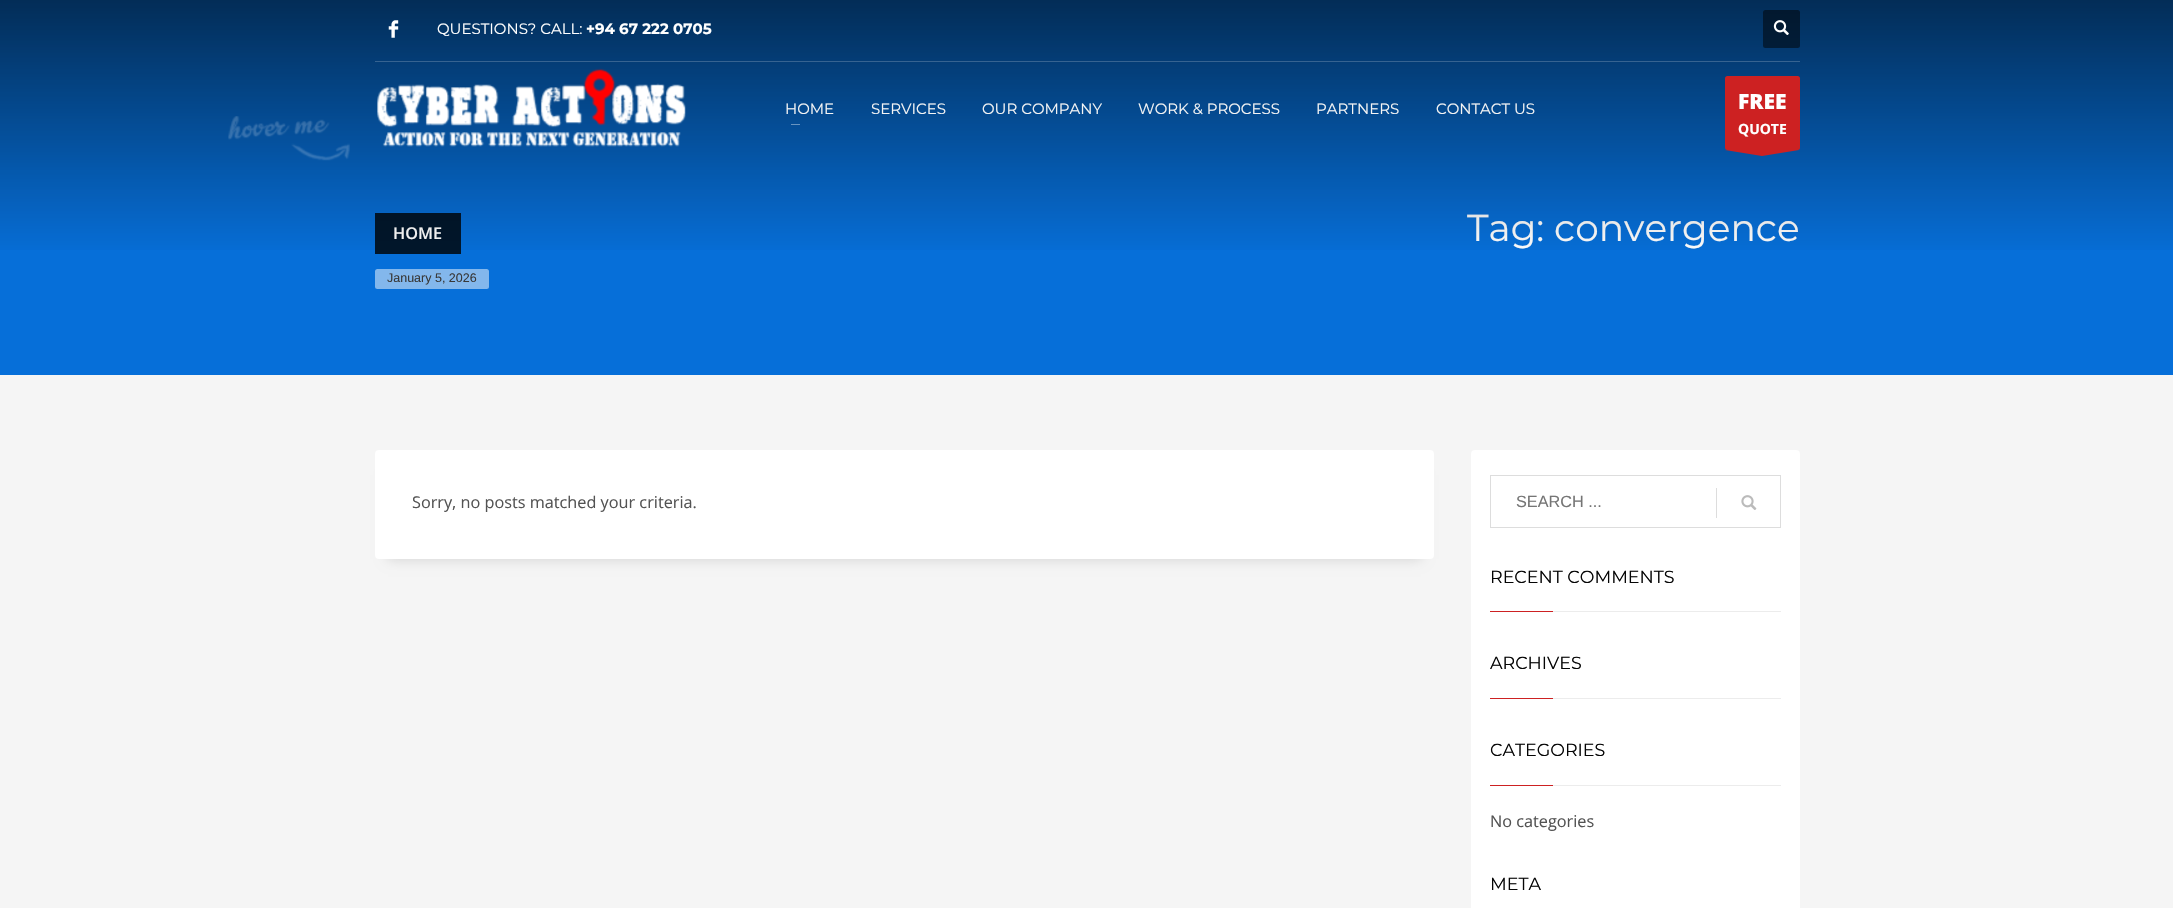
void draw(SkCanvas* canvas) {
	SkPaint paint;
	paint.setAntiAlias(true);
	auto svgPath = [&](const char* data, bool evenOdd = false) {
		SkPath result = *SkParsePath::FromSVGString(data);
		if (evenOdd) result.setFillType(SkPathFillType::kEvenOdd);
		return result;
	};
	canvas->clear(0xfff5f5f5);
	paint.setColor(0xff066fd9);
	canvas->drawRect(SkRect::MakeXYWH(0, 0, 2173, 375), paint);
	paint.setColor(0xff01162b);
	canvas->drawRect(SkRect::MakeXYWH(375, 213, 86, 41), paint);
	SkFont f1(fontMgr->matchFamilyStyle("Open Sans", SkFontStyle(600, SkFontStyle::kNormal_Width, SkFontStyle::kUpright_Slant)), 16.25);
	f1.setSubpixel(true);
	paint.setColor(0xffffffff);
	canvas->drawString("HOME", 393, 239, f1, paint);
	SkFont f2(fontMgr->matchFamilyStyle("Montserrat", SkFontStyle::Normal()), 37.5);
	f2.setSubpixel(true);
	canvas->drawString("Tag: convergence", 1467, 241, f2, paint);
	{
		const SkColor colors[] = {0x99000000, 0x00000000};
		const float stops[] = {0, 1};
		const SkPoint ends[] = {{1087, 0}, {1087, 259}};
		paint.setShader(SkGradientShader::MakeLinear(ends, colors, stops, 2, SkTileMode::kClamp));
		paint.setAlpha(255);
	}
	canvas->drawRect(SkRect::MakeXYWH(0, 0, 2173, 250), paint);
	canvas->drawImageRect(SkImages::DeferredFromEncodedData(SkData::MakeFromFileName("img1.png")), SkRect::MakeXYWH(388, 20, 11, 18), SkSamplingOptions());
	SkFont f3(fontMgr->matchFamilyStyle("Montserrat", SkFontStyle::Normal()), 15);
	f3.setSubpixel(true);
	paint.setShader(nullptr);
	paint.setColor(0xffffffff);
	canvas->drawString("QUESTIONS? CALL:", 437, 34, f3, paint);
	SkFont f4(fontMgr->matchFamilyStyle("Montserrat", SkFontStyle::Bold()), 15);
	f4.setSubpixel(true);
	canvas->drawString("+94 67 222 0705", 586, 34, f4, paint);
	paint.setColor(0x80000000);
	canvas->drawRoundRect(SkRect::MakeXYWH(1763, 10, 37, 38), 2.5, 2.5, paint);
	canvas->drawImageRect(SkImages::DeferredFromEncodedData(SkData::MakeFromFileName("img2.png")), SkRect::MakeXYWH(1773, 20, 16, 15), SkSamplingOptions());
	paint.setColor(0xff366391);
	canvas->drawRect(SkRect::MakeXYWH(375, 61, 1425, 1), paint);
	canvas->drawImageRect(SkImages::DeferredFromEncodedData(SkData::MakeFromFileName("img3.png")), SkRect::MakeXYWH(228, 116, 122, 45), SkSamplingOptions());
	canvas->drawImageRect(SkImages::DeferredFromEncodedData(SkData::MakeFromFileName("img4.png")), SkRect::MakeXYWH(377, 68, 309, 79), SkSamplingOptions());
	paint.setColor(0xfff5f5f5);
	canvas->drawString("HOME", 785, 114, f3, paint);
	paint.setColor(0xff6894c0);
	canvas->drawRect(SkRect::MakeXYWH(791, 124, 9, 1), paint);
	paint.setColor(0xfff5f5f5);
	canvas->drawString("SERVICES", 871, 114, f3, paint);
	canvas->drawString("OUR COMPANY", 982, 114, f3, paint);
	canvas->drawString("WORK & PROCESS", 1138, 114, f3, paint);
	canvas->drawString("PARTNERS", 1316, 114, f3, paint);
	canvas->drawString("CONTACT US", 1436, 114, f3, paint);
	paint.setColor(0xffcd2122);
	canvas->drawRoundRect(SkRect::MakeXYWH(1725, 76, 75, 74), 2.5, 2.5, paint);
	SkFont f5(fontMgr->matchFamilyStyle("Open Sans", SkFontStyle(800, SkFontStyle::kNormal_Width, SkFontStyle::kUpright_Slant)), 21);
	f5.setSubpixel(true);
	paint.setColor(0xffffffff);
	canvas->drawString("FREE", 1738, 109, f5, paint);
	SkFont f6(fontMgr->matchFamilyStyle("Open Sans", SkFontStyle::Bold()), 14);
	f6.setSubpixel(true);
	canvas->drawString("QUOTE", 1738, 134, f6, paint);
	paint.setColor(0xffcd2122);
	canvas->drawPath(svgPath("M1799 150L1762 156L1725 150Z", true), paint);
	paint.setColor(0xff83b7ec);
	canvas->drawRoundRect(SkRect::MakeXYWH(375, 269, 114, 20), 2.5, 2.5, paint);
	SkFont f7(fontMgr->matchFamilyStyle("Liberation Sans", SkFontStyle::Normal()), 12.5);
	f7.setSubpixel(true);
	paint.setColor(0xff383838);
	canvas->drawString("January 5, 2026", 387, 282, f7, paint);
	paint.setColor(0x26000000);
	paint.setMaskFilter(SkMaskFilter::MakeBlur(kNormal_SkBlurStyle, 6));
	canvas->drawRect(SkRect::MakeXYWH(388, 475, 1033, 84), paint);
	paint.setMaskFilter(nullptr);
	paint.setColor(0xffffffff);
	canvas->drawRoundRect(SkRect::MakeXYWH(375, 450, 1059, 109), 4, 4, paint);
	SkFont f8(fontMgr->matchFamilyStyle("Open Sans", SkFontStyle::Normal()), 16.25);
	f8.setSubpixel(true);
	paint.setColor(0xff535353);
	canvas->drawString("Sorry, no posts matched your criteria.", 412, 508, f8, paint);
	paint.setColor(0xffffffff);
	canvas->drawRoundRect(SkRect::MakeXYWH(1471, 450, 329, 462), 4, 4, paint);
	paint.setStroke(true);
	paint.setStrokeWidth(1);
	paint.setColor(0xffdddddd);
	canvas->drawRect(SkRect::MakeXYWH(1490.5, 475.5, 290, 52), paint);
	SkFont f9(fontMgr->matchFamilyStyle("Liberation Sans", SkFontStyle::Normal()), 16.25);
	f9.setSubpixel(true);
	paint.setStroke(false);
	paint.setColor(0xff757575);
	canvas->drawString("SEARCH ...", 1516, 507, f9, paint);
	paint.setColor(0xffdddddd);
	canvas->drawRect(SkRect::MakeXYWH(1716, 488, 1, 30), paint);
	canvas->drawImageRect(SkImages::DeferredFromEncodedData(SkData::MakeFromFileName("img5.png")), SkRect::MakeXYWH(1741, 495, 16, 15), SkSamplingOptions());
	SkFont f10(fontMgr->matchFamilyStyle("Montserrat", SkFontStyle::Normal()), 17.5);
	f10.setSubpixel(true);
	paint.setColor(0xff050505);
	canvas->drawString("RECENT COMMENTS", 1490, 583, f10, paint);
	paint.setColor(0xffcd2122);
	canvas->drawRect(SkRect::MakeXYWH(1490, 611, 63, 1), paint);
	paint.setColor(0xffececec);
	canvas->drawRect(SkRect::MakeXYWH(1553, 611, 228, 1), paint);
	paint.setColor(0xff050505);
	canvas->drawString("ARCHIVES", 1490, 669, f10, paint);
	paint.setColor(0xffcd2122);
	canvas->drawRect(SkRect::MakeXYWH(1490, 698, 63, 1), paint);
	paint.setColor(0xffececec);
	canvas->drawRect(SkRect::MakeXYWH(1553, 698, 228, 1), paint);
	paint.setColor(0xff050505);
	canvas->drawString("CATEGORIES", 1490, 756, f10, paint);
	paint.setColor(0xffcd2122);
	canvas->drawRect(SkRect::MakeXYWH(1490, 785, 63, 1), paint);
	paint.setColor(0xffececec);
	canvas->drawRect(SkRect::MakeXYWH(1553, 785, 228, 1), paint);
	paint.setColor(0xff535353);
	canvas->drawString("No categories", 1490, 827, f8, paint);
	paint.setColor(0xff050505);
	canvas->drawString("META", 1490, 890, f10, paint);
}
